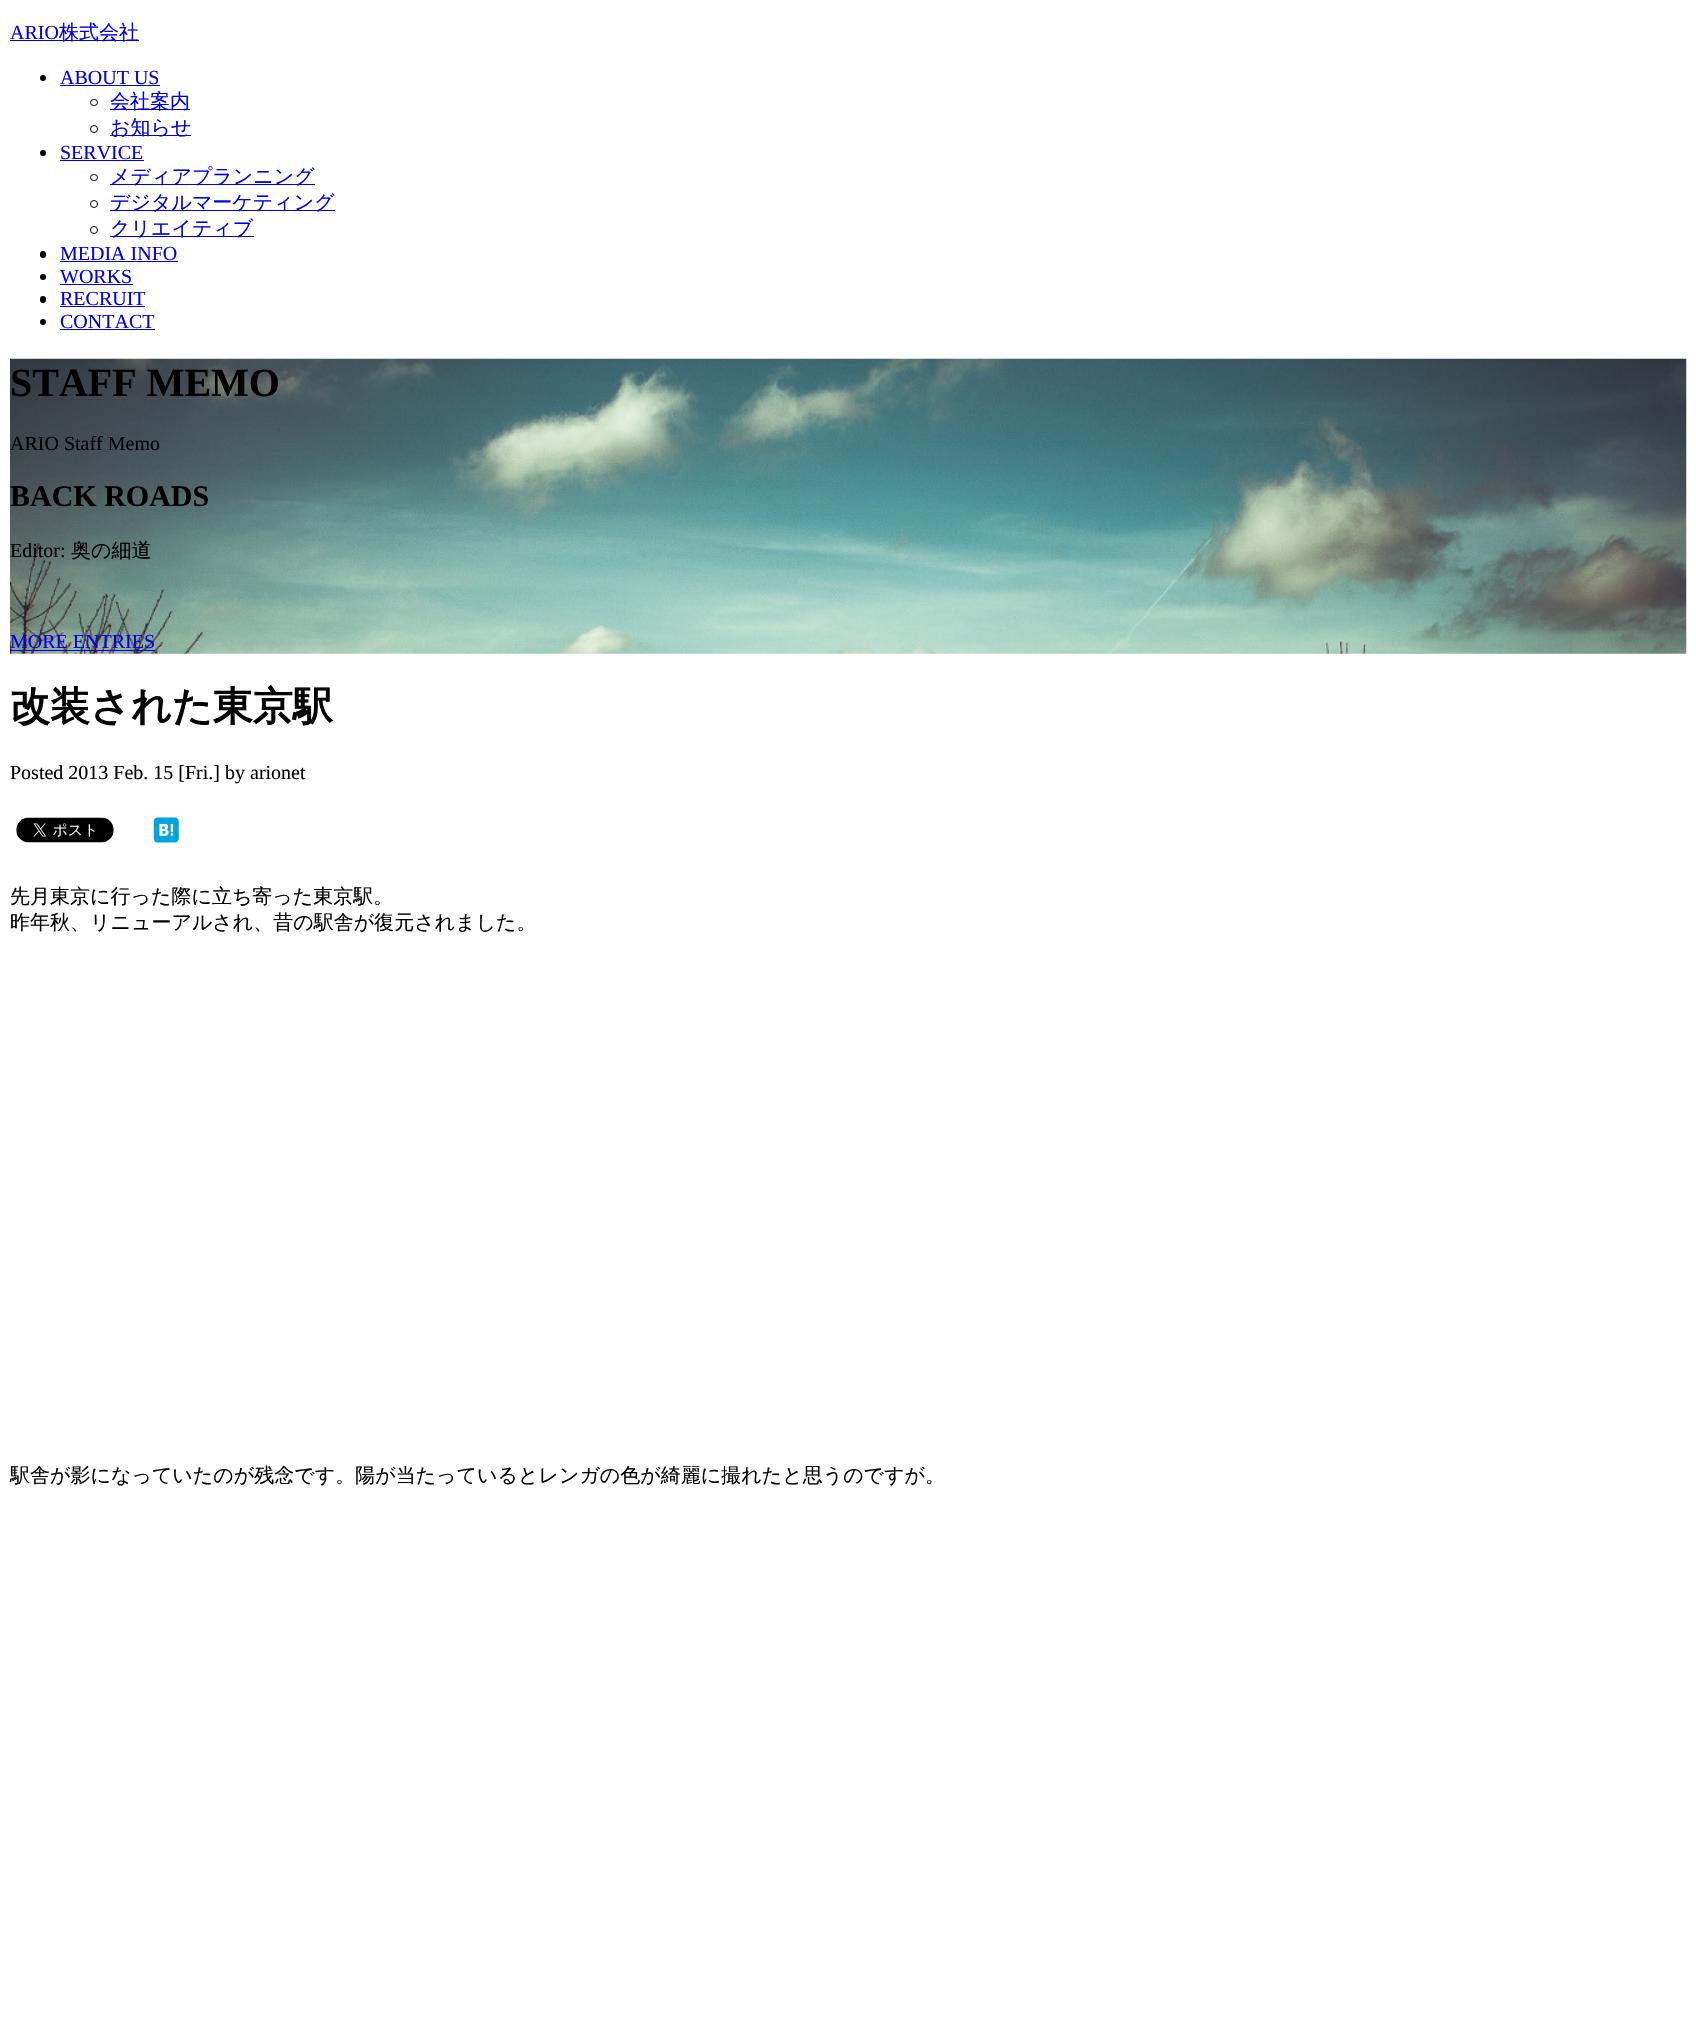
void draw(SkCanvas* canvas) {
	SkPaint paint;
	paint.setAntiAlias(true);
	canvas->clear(0xffffffff);
	SkFont f1(fontMgr->matchFamilyStyle("Liberation Serif", SkFontStyle::Normal()), 20);
	f1.setSubpixel(true);
	paint.setColor(0xff0000ee);
	canvas->drawString("ARIO", 10, 39, f1, paint);
	canvas->drawRect(SkRect::MakeXYWH(10, 40, 129, 1), paint);
	SkFont f2(fontMgr->matchFamilyStyle("WenQuanYi Zen Hei", SkFontStyle(500, SkFontStyle::kNormal_Width, SkFontStyle::kUpright_Slant)), 20);
	f2.setSubpixel(true);
	canvas->drawString("株式会社", 59, 39, f2, paint);
	paint.setColor(0xff000000);
	canvas->drawCircle(43, 78, 3, paint);
	paint.setColor(0xff0000ee);
	canvas->drawString("ABOUT US", 60, 84, f1, paint);
	canvas->drawRect(SkRect::MakeXYWH(60, 85, 100, 1), paint);
	paint.setStroke(true);
	paint.setStrokeWidth(1);
	paint.setColor(0xff000000);
	canvas->drawRoundRect(SkRect::MakeXYWH(90.5, 99.5, 7, 6), 3, 3, paint);
	paint.setStroke(false);
	paint.setColor(0xff0000ee);
	canvas->drawRect(SkRect::MakeXYWH(110, 109, 80, 1), paint);
	canvas->drawString("会社案内", 110, 108, f2, paint);
	paint.setStroke(true);
	paint.setColor(0xff000000);
	canvas->drawCircle(94, 129, 3.5, paint);
	paint.setStroke(false);
	paint.setColor(0xff0000ee);
	canvas->drawRect(SkRect::MakeXYWH(110, 135, 81, 1), paint);
	canvas->drawString("お知らせ", 110, 134, f2, paint);
	paint.setColor(0xff000000);
	canvas->drawCircle(43, 153, 3, paint);
	paint.setColor(0xff0000ee);
	canvas->drawString("SERVICE", 60, 159, f1, paint);
	canvas->drawRect(SkRect::MakeXYWH(60, 160, 84, 1), paint);
	paint.setStroke(true);
	paint.setColor(0xff000000);
	canvas->drawRoundRect(SkRect::MakeXYWH(90.5, 174.5, 7, 6), 3, 3, paint);
	paint.setStroke(false);
	paint.setColor(0xff0000ee);
	canvas->drawRect(SkRect::MakeXYWH(110, 184, 205, 1), paint);
	canvas->drawString("メディアプランニング", 110, 183, f2, paint);
	paint.setStroke(true);
	paint.setColor(0xff000000);
	canvas->drawCircle(94, 204, 3.5, paint);
	paint.setStroke(false);
	paint.setColor(0xff0000ee);
	canvas->drawRect(SkRect::MakeXYWH(110, 210, 225, 1), paint);
	canvas->drawString("デジタルマーケティング", 110, 209, f2, paint);
	paint.setStroke(true);
	paint.setColor(0xff000000);
	canvas->drawCircle(94, 230, 3.5, paint);
	paint.setStroke(false);
	paint.setColor(0xff0000ee);
	canvas->drawRect(SkRect::MakeXYWH(110, 236, 144, 1), paint);
	canvas->drawString("クリエイティブ", 110, 235, f2, paint);
	paint.setColor(0xff000000);
	canvas->drawRoundRect(SkRect::MakeXYWH(40, 251, 6, 7), 3, 3, paint);
	paint.setColor(0xff0000ee);
	canvas->drawString("MEDIA INFO", 60, 260, f1, paint);
	canvas->drawRect(SkRect::MakeXYWH(60, 261, 118, 1), paint);
	paint.setColor(0xff000000);
	canvas->drawCircle(43, 277, 3, paint);
	paint.setColor(0xff0000ee);
	canvas->drawString("WORKS", 60, 283, f1, paint);
	canvas->drawRect(SkRect::MakeXYWH(60, 284, 73, 1), paint);
	paint.setColor(0xff000000);
	canvas->drawRoundRect(SkRect::MakeXYWH(40, 296, 6, 7), 3, 3, paint);
	paint.setColor(0xff0000ee);
	canvas->drawString("RECRUIT", 60, 305, f1, paint);
	canvas->drawRect(SkRect::MakeXYWH(60, 306, 85, 1), paint);
	paint.setColor(0xff000000);
	canvas->drawCircle(43, 322, 3, paint);
	paint.setColor(0xff0000ee);
	canvas->drawString("CONTACT", 60, 328, f1, paint);
	canvas->drawRect(SkRect::MakeXYWH(60, 329, 95, 1), paint);
	canvas->drawImageRect(SkImages::DeferredFromEncodedData(SkData::MakeFromFileName("img1.png")), SkRect::MakeXYWH(10, 358, 1677, 296), SkSamplingOptions());
	SkFont f3(fontMgr->matchFamilyStyle("Liberation Serif", SkFontStyle::Bold()), 40);
	f3.setSubpixel(true);
	paint.setColor(0xff000000);
	canvas->drawString("STAFF MEMO", 10, 396, f3, paint);
	canvas->drawString("ARIO Staff Memo", 10, 450, f1, paint);
	SkFont f4(fontMgr->matchFamilyStyle("Liberation Serif", SkFontStyle::Bold()), 30);
	f4.setSubpixel(true);
	canvas->drawString("BACK ROADS", 10, 506, f4, paint);
	canvas->drawString("Editor:", 10, 557, f1, paint);
	canvas->drawString("奥の細道", 71, 557, f2, paint);
	paint.setColor(0xff0000ee);
	canvas->drawString("MORE ENTRIES", 10, 648, f1, paint);
	canvas->drawRect(SkRect::MakeXYWH(10, 650, 145, 1), paint);
	SkFont f5(fontMgr->matchFamilyStyle("WenQuanYi Zen Hei", SkFontStyle::Bold()), 40);
	f5.setSubpixel(true);
	paint.setColor(0xff000000);
	canvas->drawString("改装された東京駅", 10, 720, f5, paint);
	canvas->drawString("Posted 2013 Feb. 15 [Fri.] by arionet", 10, 779, f1, paint);
	canvas->drawImageRect(SkImages::DeferredFromEncodedData(SkData::MakeFromFileName("img2.png")), SkRect::MakeXYWH(16, 817, 98, 26), SkSamplingOptions());
	canvas->drawImageRect(SkImages::DeferredFromEncodedData(SkData::MakeFromFileName("img3.png")), SkRect::MakeXYWH(153, 817, 26, 26), SkSamplingOptions());
	canvas->drawString("先月東京に行った際に立ち寄った東京駅。", 10, 903, f2, paint);
	canvas->drawString("昨年秋、リニューアルされ、昔の駅舎が復元されました。", 10, 929, f2, paint);
	canvas->drawString("駅舎が影になっていたのが残念です。陽が当たっているとレンガの色が綺麗に撮れたと思うのですが。", 10, 1482, f2, paint);
}
